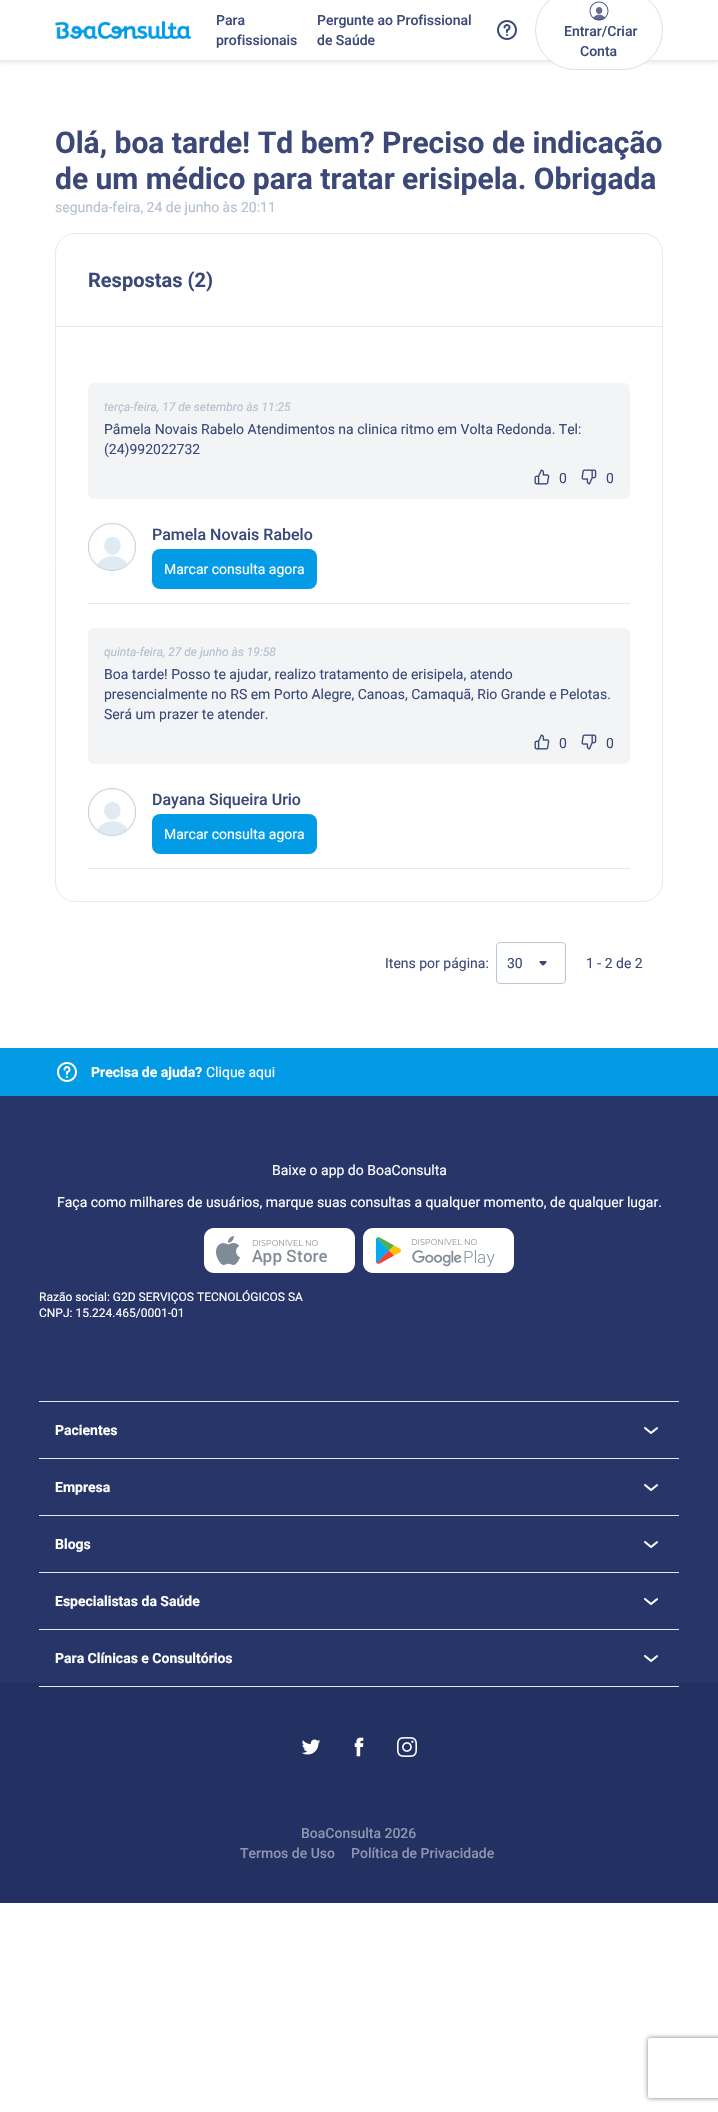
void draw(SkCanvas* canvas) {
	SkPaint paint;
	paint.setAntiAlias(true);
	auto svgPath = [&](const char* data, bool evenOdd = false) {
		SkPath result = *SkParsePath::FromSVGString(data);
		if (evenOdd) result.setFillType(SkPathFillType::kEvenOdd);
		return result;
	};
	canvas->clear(0xffffffff);
	canvas->save();
	canvas->clipRect(SkRect::MakeXYWH(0, 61, 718, 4));
	paint.setColor(0x1a273569);
	paint.setMaskFilter(SkMaskFilter::MakeBlur(kNormal_SkBlurStyle, 2));
	canvas->drawRect(SkRect::MakeXYWH(0, 2, 718, 61), paint);
	paint.setMaskFilter(nullptr);
	canvas->restore();
	paint.setColor(0xffe6eaef);
	canvas->drawRect(SkRect::MakeXYWH(0, 60, 718, 1), paint);
	canvas->drawImageRect(SkImages::DeferredFromEncodedData(SkData::MakeFromFileName("img1.png")), SkRect::MakeXYWH(55, 21, 137, 18), SkSamplingOptions());
	SkFont f1(fontMgr->matchFamilyStyle("Roboto", SkFontStyle(500, SkFontStyle::kNormal_Width, SkFontStyle::kUpright_Slant)), 14);
	f1.setSubpixel(true);
	paint.setColor(0xff3c4978);
	canvas->drawString("Para", 216, 25, f1, paint);
	canvas->drawString("profissionais", 216, 45, f1, paint);
	canvas->drawString("Pergunte ao Profissional", 317, 25, f1, paint);
	canvas->drawString("de Saúde", 317, 45, f1, paint);
	canvas->drawImageRect(SkImages::DeferredFromEncodedData(SkData::MakeFromFileName("img2.png")), SkRect::MakeXYWH(497, 20, 20, 20), SkSamplingOptions());
	paint.setColor(0xffffffff);
	canvas->drawRoundRect(SkRect::MakeXYWH(535.5, -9.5, 127, 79), 39.5, 39.5, paint);
	paint.setStroke(true);
	paint.setStrokeWidth(1);
	paint.setColor(0xffdae0e6);
	canvas->drawRoundRect(SkRect::MakeXYWH(535.5, -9.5, 127, 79), 39.5, 39.5, paint);
	canvas->drawImageRect(SkImages::DeferredFromEncodedData(SkData::MakeFromFileName("img3.png")), SkRect::MakeXYWH(589, 1, 20, 20), SkSamplingOptions());
	paint.setStroke(false);
	paint.setColor(0xff3c4978);
	canvas->drawString("Entrar/Criar", 564, 36, f1, paint);
	canvas->drawString("Conta", 580, 56, f1, paint);
	SkFont f2(fontMgr->matchFamilyStyle("Roboto", SkFontStyle::Bold()), 30);
	f2.setSubpixel(true);
	canvas->drawString("Olá, boa tarde! Td bem? Preciso de indicação", 55, 153, f2, paint);
	canvas->drawString("de um médico para tratar erisipela. Obrigada", 55, 189, f2, paint);
	SkFont f3(fontMgr->matchFamilyStyle("Roboto", SkFontStyle::Normal()), 14);
	f3.setSubpixel(true);
	paint.setColor(0xffb5c1ce);
	canvas->drawString("segunda-feira, 24 de junho às 20:11", 55, 212, f3, paint);
	paint.setStroke(true);
	paint.setColor(0xffe6eaef);
	canvas->drawRoundRect(SkRect::MakeXYWH(55.5, 233.5, 607, 668), 19.5, 19.5, paint);
	paint.setStroke(false);
	canvas->drawRect(SkRect::MakeXYWH(56, 326, 606, 1), paint);
	SkFont f4(fontMgr->matchFamilyStyle("Roboto", SkFontStyle::Bold()), 20);
	f4.setSubpixel(true);
	paint.setColor(0xff3c4978);
	canvas->drawString("Respostas (2)", 88, 287, f4, paint);
	paint.setColor(0xffe6eaef);
	canvas->drawRect(SkRect::MakeXYWH(88, 603, 542, 1), paint);
	paint.setColor(0xfff2f4f6);
	canvas->drawRoundRect(SkRect::MakeXYWH(88, 383, 542, 116), 6, 6, paint);
	SkFont f5(fontMgr->matchFamilyStyle("Roboto", SkFontStyle::Italic()), 12);
	f5.setSubpixel(true);
	paint.setColor(0xffb5c1ce);
	canvas->drawString("terça-feira, 17 de setembro às 11:25", 104, 411, f5, paint);
	paint.setColor(0xff3c4978);
	canvas->drawString("Pâmela Novais Rabelo Atendimentos na clinica ritmo em Volta Redonda. Tel:", 104, 434, f3, paint);
	canvas->drawString("(24)992022732", 104, 454, f3, paint);
	canvas->drawImageRect(SkImages::DeferredFromEncodedData(SkData::MakeFromFileName("img4.png")), SkRect::MakeXYWH(534, 469, 16, 16), SkSamplingOptions());
	canvas->drawString("0", 559, 483, f3, paint);
	canvas->drawImageRect(SkImages::DeferredFromEncodedData(SkData::MakeFromFileName("img5.png")), SkRect::MakeXYWH(581, 469, 16, 16), SkSamplingOptions());
	canvas->drawString("0", 606, 483, f3, paint);
	paint.setColor(0xffb5c1ce);
	canvas->drawCircle(112, 547, 24, paint);
	canvas->drawImageRect(SkImages::DeferredFromEncodedData(SkData::MakeFromFileName("img6.png")), SkRect::MakeXYWH(88, 523, 48, 48), SkSamplingOptions());
	SkFont f6(fontMgr->matchFamilyStyle("Roboto", SkFontStyle(500, SkFontStyle::kNormal_Width, SkFontStyle::kUpright_Slant)), 16);
	f6.setSubpixel(true);
	paint.setColor(0xff3c4978);
	canvas->drawString("Pamela Novais Rabelo", 152, 540, f6, paint);
	paint.setColor(0xff039be5);
	canvas->drawRoundRect(SkRect::MakeXYWH(152, 549, 165, 40), 8, 8, paint);
	paint.setColor(0xffffffff);
	canvas->drawString("Marcar consulta agora", 164, 574, f3, paint);
	paint.setColor(0xffe6eaef);
	canvas->drawRect(SkRect::MakeXYWH(88, 868, 542, 1), paint);
	paint.setColor(0xfff2f4f6);
	canvas->drawRoundRect(SkRect::MakeXYWH(88, 628, 542, 136), 6, 6, paint);
	paint.setColor(0xffb5c1ce);
	canvas->drawString("quinta-feira, 27 de junho às 19:58", 104, 656, f5, paint);
	paint.setColor(0xff3c4978);
	canvas->drawString("Boa tarde! Posso te ajudar, realizo tratamento de erisipela, atendo", 104, 679, f3, paint);
	canvas->drawString("presencialmente no RS em Porto Alegre, Canoas, Camaquã, Rio Grande e Pelotas.", 104, 699, f3, paint);
	canvas->drawString("Será um prazer te atender.", 104, 719, f3, paint);
	canvas->drawImageRect(SkImages::DeferredFromEncodedData(SkData::MakeFromFileName("img4.png")), SkRect::MakeXYWH(534, 734, 16, 16), SkSamplingOptions());
	canvas->drawString("0", 559, 748, f3, paint);
	canvas->drawImageRect(SkImages::DeferredFromEncodedData(SkData::MakeFromFileName("img5.png")), SkRect::MakeXYWH(581, 734, 16, 16), SkSamplingOptions());
	canvas->drawString("0", 606, 748, f3, paint);
	paint.setColor(0xffb5c1ce);
	canvas->drawCircle(112, 812, 24, paint);
	canvas->drawImageRect(SkImages::DeferredFromEncodedData(SkData::MakeFromFileName("img6.png")), SkRect::MakeXYWH(88, 788, 48, 48), SkSamplingOptions());
	paint.setColor(0xff3c4978);
	canvas->drawString("Dayana Siqueira Urio", 152, 805, f6, paint);
	paint.setColor(0xff039be5);
	canvas->drawRoundRect(SkRect::MakeXYWH(152, 814, 165, 40), 8, 8, paint);
	paint.setColor(0xffffffff);
	canvas->drawString("Marcar consulta agora", 164, 839, f3, paint);
	paint.setColor(0xff3c4978);
	canvas->drawString("Itens por página:", 385, 968, f3, paint);
	paint.setStroke(true);
	paint.setColor(0xffb7c7d6);
	canvas->drawRoundRect(SkRect::MakeXYWH(496.5, 942.5, 69, 41), 3.5, 3.5, paint);
	canvas->drawImageRect(SkImages::DeferredFromEncodedData(SkData::MakeFromFileName("img7.png")), SkRect::MakeXYWH(539, 961, 8, 5), SkSamplingOptions());
	paint.setStroke(false);
	paint.setColor(0xff3c4978);
	canvas->drawString("30", 507, 968, f3, paint);
	canvas->drawString("1 - 2 de 2", 586, 968, f3, paint);
	paint.setColor(0xff039be5);
	canvas->drawRect(SkRect::MakeXYWH(0, 1048, 718, 48), paint);
	canvas->drawImageRect(SkImages::DeferredFromEncodedData(SkData::MakeFromFileName("img8.png")), SkRect::MakeXYWH(57, 1062, 20, 20), SkSamplingOptions());
	SkFont f7(fontMgr->matchFamilyStyle("Roboto", SkFontStyle::Bold()), 14);
	f7.setSubpixel(true);
	paint.setColor(0xffffffff);
	canvas->drawString("Precisa de ajuda?", 91, 1077, f7, paint);
	canvas->drawString("Clique aqui", 206, 1077, f3, paint);
	paint.setColor(0xff273569);
	canvas->drawRect(SkRect::MakeXYWH(0, 1096, 718, 587), paint);
	paint.setColor(0xffffffff);
	canvas->drawString("Baixe o app do BoaConsulta", 272, 1175, f3, paint);
	canvas->drawString("Faça como milhares de usuários, marque suas consultas a qualquer momento, de qualquer lugar.", 57, 1207, f3, paint);
	canvas->drawImageRect(SkImages::DeferredFromEncodedData(SkData::MakeFromFileName("img9.png")), SkRect::MakeXYWH(204, 1228, 151, 45), SkSamplingOptions());
	canvas->drawImageRect(SkImages::DeferredFromEncodedData(SkData::MakeFromFileName("img10.png")), SkRect::MakeXYWH(363, 1228, 151, 45), SkSamplingOptions());
	SkFont f8(fontMgr->matchFamilyStyle("Roboto", SkFontStyle::Normal()), 12);
	f8.setSubpixel(true);
	canvas->drawString("Razão social: G2D SERVIÇOS TECNOLÓGICOS SA", 39, 1301, f8, paint);
	canvas->drawString("CNPJ: 15.224.465/0001-01", 39, 1317, f8, paint);
	paint.setColor(0xffe6eaef);
	canvas->drawRect(SkRect::MakeXYWH(39, 1401, 640, 1), paint);
	paint.setColor(0xffffffff);
	canvas->drawString("Pacientes", 55, 1435, f7, paint);
	canvas->drawImageRect(SkImages::DeferredFromEncodedData(SkData::MakeFromFileName("img11.png")), SkRect::MakeXYWH(644, 1427, 14, 7), SkSamplingOptions());
	paint.setColor(0xffe6eaef);
	canvas->drawRect(SkRect::MakeXYWH(39, 1458, 640, 1), paint);
	paint.setColor(0xffffffff);
	canvas->drawString("Empresa", 55, 1492, f7, paint);
	canvas->drawImageRect(SkImages::DeferredFromEncodedData(SkData::MakeFromFileName("img11.png")), SkRect::MakeXYWH(644, 1484, 14, 7), SkSamplingOptions());
	paint.setColor(0xffe6eaef);
	canvas->drawRect(SkRect::MakeXYWH(39, 1515, 640, 1), paint);
	paint.setColor(0xffffffff);
	canvas->drawString("Blogs", 55, 1549, f7, paint);
	canvas->drawImageRect(SkImages::DeferredFromEncodedData(SkData::MakeFromFileName("img11.png")), SkRect::MakeXYWH(644, 1541, 14, 7), SkSamplingOptions());
	paint.setColor(0xffe6eaef);
	canvas->drawRect(SkRect::MakeXYWH(39, 1572, 640, 1), paint);
	paint.setColor(0xffffffff);
	canvas->drawString("Especialistas da Saúde", 55, 1606, f7, paint);
	canvas->drawImageRect(SkImages::DeferredFromEncodedData(SkData::MakeFromFileName("img11.png")), SkRect::MakeXYWH(644, 1598, 14, 7), SkSamplingOptions());
	paint.setColor(0xffe6eaef);
	canvas->drawRect(SkRect::MakeXYWH(39, 1629, 640, 1), paint);
	paint.setColor(0xff233062);
	canvas->drawRect(SkRect::MakeXYWH(0, 1683, 718, 220), paint);
	paint.setColor(0xffe6eaef);
	canvas->drawRect(SkRect::MakeXYWH(39, 1686, 640, 1), paint);
	paint.setColor(0xffffffff);
	canvas->drawString("Para Clínicas e Consultórios", 55, 1663, f7, paint);
	canvas->drawImageRect(SkImages::DeferredFromEncodedData(SkData::MakeFromFileName("img11.png")), SkRect::MakeXYWH(644, 1655, 14, 7), SkSamplingOptions());
	canvas->drawImageRect(SkImages::DeferredFromEncodedData(SkData::MakeFromFileName("img12.png")), SkRect::MakeXYWH(301, 1739, 20, 16), SkSamplingOptions());
	canvas->drawImageRect(SkImages::DeferredFromEncodedData(SkData::MakeFromFileName("img13.png")), SkRect::MakeXYWH(354, 1737, 10, 20), SkSamplingOptions());
	canvas->drawImageRect(SkImages::DeferredFromEncodedData(SkData::MakeFromFileName("img14.png")), SkRect::MakeXYWH(397, 1737, 20, 20), SkSamplingOptions());
	paint.setColor(0xff8d94ae);
	canvas->drawString("BoaConsulta 2026", 301, 1838, f1, paint);
	canvas->drawString("Termos de Uso", 240, 1858, f1, paint);
	canvas->drawString("Política de Privacidade", 351, 1858, f1, paint);
	canvas->save();
	canvas->clipPath(svgPath("M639 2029H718V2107H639ZM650 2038H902C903 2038 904 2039 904 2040V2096C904 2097 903 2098 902 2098H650C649 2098 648 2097 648 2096V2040C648 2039 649 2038 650 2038Z", true), true);
	paint.setColor(0xff808080);
	paint.setMaskFilter(SkMaskFilter::MakeBlur(kNormal_SkBlurStyle, 2.5));
	canvas->drawRoundRect(SkRect::MakeXYWH(648, 2038, 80, 60), 2, 2, paint);
	paint.setMaskFilter(nullptr);
	canvas->restore();
}
